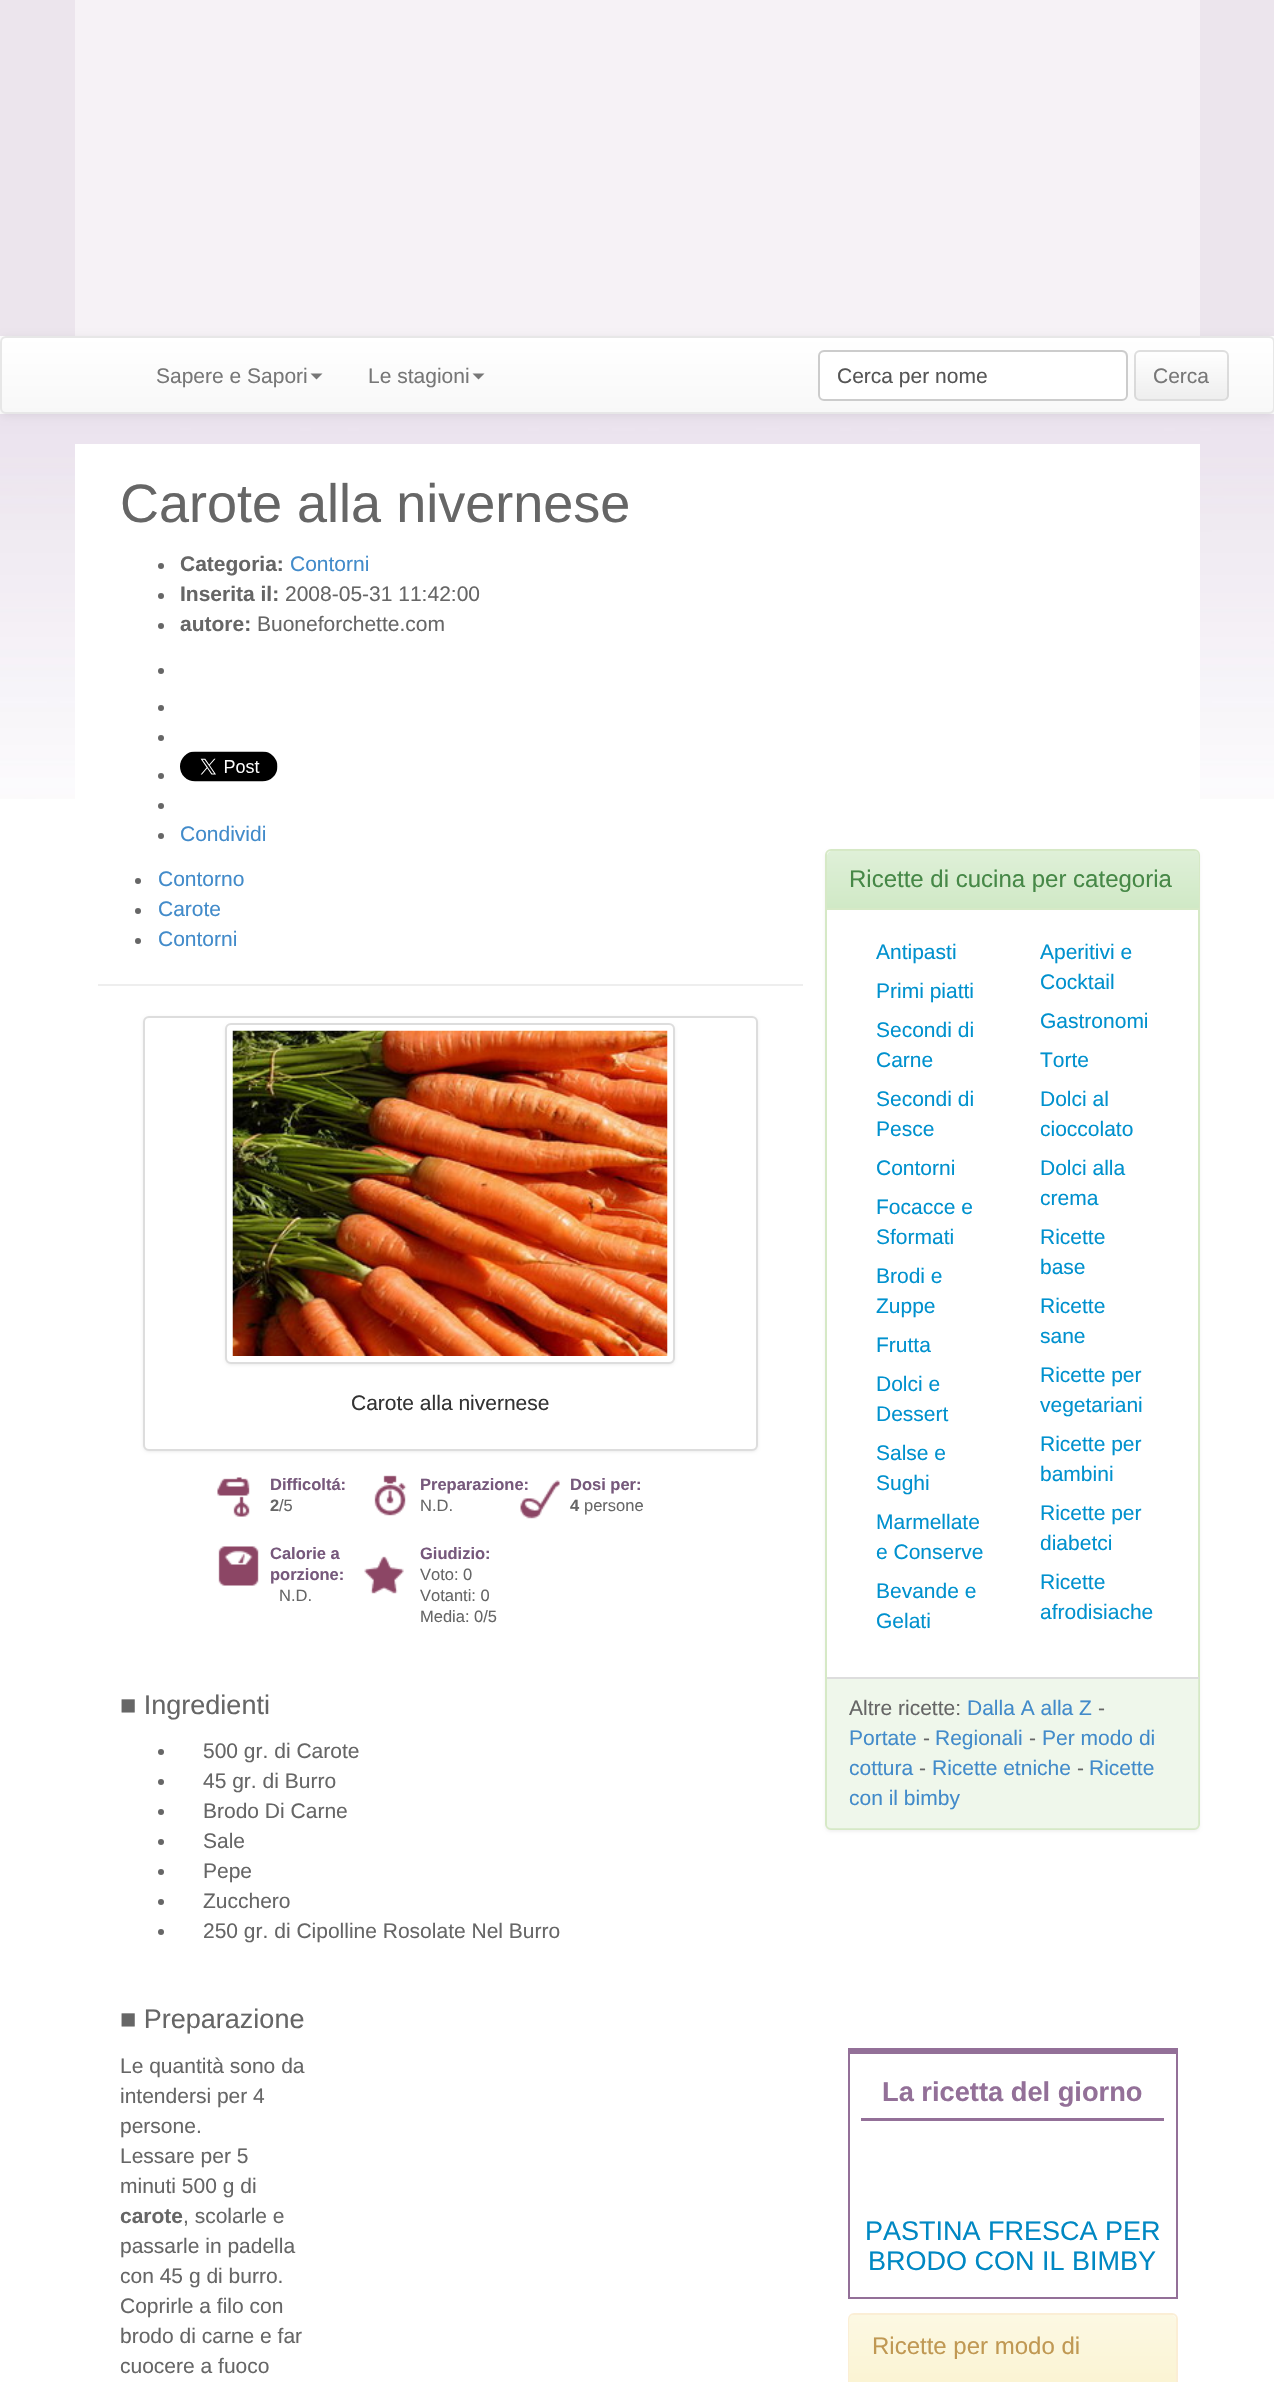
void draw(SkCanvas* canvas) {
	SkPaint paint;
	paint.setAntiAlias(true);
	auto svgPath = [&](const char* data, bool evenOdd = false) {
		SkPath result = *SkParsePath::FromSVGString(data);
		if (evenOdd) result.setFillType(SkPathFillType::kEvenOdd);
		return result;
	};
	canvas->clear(0xffffffff);
	canvas->drawImageRect(SkImages::DeferredFromEncodedData(SkData::MakeFromFileName("img1.png")), SkRect::MakeXYWH(0, 0, 1274, 799), SkSamplingOptions());
	paint.setColor(0xfff6f2f6);
	canvas->drawRect(SkRect::MakeXYWH(75, 0, 1125, 336), paint);
	paint.setColor(0xffffffff);
	canvas->drawRect(SkRect::MakeXYWH(0, 336, 1274, 78), paint);
	paint.setColor(0x12000000);
	paint.setMaskFilter(SkMaskFilter::MakeBlur(kNormal_SkBlurStyle, 4));
	canvas->drawRoundRect(SkRect::MakeXYWH(0, 338, 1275, 78), 6, 6, paint);
	paint.setMaskFilter(nullptr);
	canvas->save();
	canvas->clipPath(svgPath("M6 336H1269C1272.5 336 1275 338.5 1275 342V408C1275 411.5 1272.5 414 1269 414H6C2.5 414 0 411.5 0 408V342C0 338.5 2.5 336 6 336Z"), true);
	{
		const SkColor colors[] = {0xffffffff, 0xfff8f8f8};
		const float stops[] = {0, 1};
		const SkPoint ends[] = {{638, 337}, {638, 413}};
		paint.setShader(SkGradientShader::MakeLinear(ends, colors, stops, 2, SkTileMode::kClamp));
		paint.setAlpha(255);
	}
	canvas->drawRect(SkRect::MakeXYWH(0, 338, 1274, 75), paint);
	canvas->restore();
	paint.setStroke(true);
	paint.setStrokeWidth(2);
	paint.setShader(nullptr);
	paint.setColor(0xffe7e7e7);
	canvas->drawRoundRect(SkRect::MakeXYWH(1, 337, 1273, 76), 5, 5, paint);
	SkFont f1(fontMgr->matchFamilyStyle("Liberation Sans", SkFontStyle::Normal()), 21);
	f1.setSubpixel(true);
	paint.setStroke(false);
	paint.setColor(0xff777777);
	canvas->drawString("Sapere e Sapori", 156, 383, f1, paint);
	canvas->drawPath(svgPath("M310.5 373.5H322.5L316.5 379.5Z"), paint);
	canvas->drawString("Le stagioni", 368, 383, f1, paint);
	canvas->drawPath(svgPath("M472.5 373.5H484.5L478.5 379.5Z"), paint);
	paint.setColor(0xffffffff);
	canvas->drawRoundRect(SkRect::MakeXYWH(818, 350, 310, 51), 6, 6, paint);
	paint.setColor(0xffececec);
	canvas->drawPath(svgPath("M824 352H1122C1124 352 1126 355 1126 357V397C1127 396 1127 395 1127 394V356C1127 353 1125 351 1122 351H824C821 351 819 353 819 356V357C819 355 821 352 824 352Z"), paint);
	paint.setStroke(true);
	paint.setColor(0xffcccccc);
	canvas->drawRoundRect(SkRect::MakeXYWH(819, 351, 308, 49), 5, 5, paint);
	paint.setStroke(false);
	paint.setColor(0xff555555);
	canvas->drawString("Cerca per nome", 837, 383, f1, paint);
	paint.setColor(0xa6ffffff);
	canvas->drawRoundRect(SkRect::MakeXYWH(1134, 350, 95, 51), 6, 6, paint);
	canvas->save();
	canvas->clipPath(svgPath("M1140 350H1223C1226.5 350 1229 352.5 1229 356V395C1229 398.5 1226.5 401 1223 401H1140C1136.5 401 1134 398.5 1134 395V356C1134 352.5 1136.5 350 1140 350Z"), true);
	{
		const SkColor colors[] = {0xffffffff, 0xffeeeeee};
		const float stops[] = {0, 1};
		const SkPoint ends[] = {{1181, 351}, {1181, 399}};
		paint.setShader(SkGradientShader::MakeLinear(ends, colors, stops, 2, SkTileMode::kClamp));
		paint.setAlpha(255);
	}
	canvas->drawRect(SkRect::MakeXYWH(1134, 351, 95, 48), paint);
	canvas->restore();
	paint.setStroke(true);
	paint.setShader(nullptr);
	paint.setColor(0xa6cccccc);
	canvas->drawRoundRect(SkRect::MakeXYWH(1135, 351, 93, 49), 5, 5, paint);
	paint.setStroke(false);
	paint.setColor(0xff777777);
	canvas->drawString("Cerca", 1153, 383, f1, paint);
	paint.setColor(0xffffffff);
	canvas->drawRect(SkRect::MakeXYWH(75, 444, 1125, 355), paint);
	SkFont f2(fontMgr->matchFamilyStyle("Liberation Sans", SkFontStyle::Normal()), 54);
	f2.setSubpixel(true);
	paint.setColor(0xff666666);
	canvas->drawString("Carote alla nivernese", 120, 522, f2, paint);
	canvas->drawCircle(161, 566, 3, paint);
	SkFont f3(fontMgr->matchFamilyStyle("Liberation Sans", SkFontStyle::Bold()), 21);
	f3.setSubpixel(true);
	canvas->drawString("Categoria:", 180, 571, f3, paint);
	paint.setColor(0xff428bca);
	canvas->drawString("Contorni", 290, 571, f1, paint);
	paint.setColor(0xff666666);
	canvas->drawCircle(161, 596, 3, paint);
	canvas->drawString("Inserita il:", 180, 601, f3, paint);
	canvas->drawString("2008-05-31 11:42:00", 285, 601, f1, paint);
	canvas->drawCircle(161, 626, 3, paint);
	canvas->drawString("autore:", 180, 631, f3, paint);
	canvas->drawString("Buoneforchette.com", 257, 631, f1, paint);
	canvas->drawCircle(161, 671, 3, paint);
	canvas->drawCircle(161, 708, 3, paint);
	canvas->drawCircle(161, 738, 3, paint);
	canvas->drawCircle(161, 776, 3, paint);
	canvas->drawImageRect(SkImages::DeferredFromEncodedData(SkData::MakeFromFileName("img2.png")), SkRect::MakeXYWH(180, 751, 98, 31), SkSamplingOptions());
	canvas->drawCircle(161, 806, 3, paint);
	canvas->drawCircle(161, 836, 3, paint);
	paint.setColor(0xff428bca);
	canvas->drawString("Condividi", 180, 841, f1, paint);
	paint.setColor(0xff666666);
	canvas->drawCircle(138, 881, 3, paint);
	paint.setColor(0xff428bca);
	canvas->drawString("Contorno", 158, 886, f1, paint);
	paint.setColor(0xff666666);
	canvas->drawCircle(138, 911, 3, paint);
	paint.setColor(0xff428bca);
	canvas->drawString("Carote", 158, 916, f1, paint);
	paint.setColor(0xff666666);
	canvas->drawCircle(138, 941, 3, paint);
	paint.setColor(0xff428bca);
	canvas->drawString("Contorni", 158, 946, f1, paint);
	paint.setColor(0xffeeeeee);
	canvas->drawRect(SkRect::MakeXYWH(98, 984, 705, 2), paint);
	paint.setColor(0x12000000);
	paint.setMaskFilter(SkMaskFilter::MakeBlur(kNormal_SkBlurStyle, 1.5));
	canvas->drawRoundRect(SkRect::MakeXYWH(143, 1017, 615, 435), 6, 6, paint);
	paint.setMaskFilter(nullptr);
	paint.setColor(0xffffffff);
	canvas->drawRoundRect(SkRect::MakeXYWH(144, 1017, 613, 433), 5, 5, paint);
	paint.setStroke(true);
	paint.setColor(0xffdddddd);
	canvas->drawRoundRect(SkRect::MakeXYWH(144, 1017, 613, 433), 5, 5, paint);
	paint.setStroke(false);
	paint.setColor(0x12000000);
	paint.setMaskFilter(SkMaskFilter::MakeBlur(kNormal_SkBlurStyle, 1.5));
	canvas->drawRoundRect(SkRect::MakeXYWH(225, 1025, 450, 340), 6, 6, paint);
	paint.setMaskFilter(nullptr);
	paint.setColor(0xffffffff);
	canvas->drawRoundRect(SkRect::MakeXYWH(226, 1024, 448, 339), 5, 5, paint);
	paint.setStroke(true);
	paint.setColor(0xffdddddd);
	canvas->drawRoundRect(SkRect::MakeXYWH(226, 1024, 448, 339), 5, 5, paint);
	canvas->drawImageRect(SkImages::DeferredFromEncodedData(SkData::MakeFromFileName("img3.png")), SkRect::MakeXYWH(232, 1030, 436, 326), SkSamplingOptions());
	paint.setStroke(false);
	paint.setColor(0xff333333);
	canvas->drawString("Carote alla nivernese", 351, 1410, f1, paint);
	canvas->drawImageRect(SkImages::DeferredFromEncodedData(SkData::MakeFromFileName("img4.png")), SkRect::MakeXYWH(217, 1477, 33, 40), SkSamplingOptions());
	SkFont f4(fontMgr->matchFamilyStyle("Liberation Sans", SkFontStyle::Bold()), 16.5);
	f4.setSubpixel(true);
	paint.setColor(0xff77597c);
	canvas->drawString("Difficoltá:", 270, 1490, f4, paint);
	paint.setColor(0xff666666);
	canvas->drawString("2", 270, 1511, f4, paint);
	SkFont f5(fontMgr->matchFamilyStyle("Liberation Sans", SkFontStyle::Normal()), 16.5);
	f5.setSubpixel(true);
	canvas->drawString("/5", 279, 1511, f5, paint);
	canvas->drawImageRect(SkImages::DeferredFromEncodedData(SkData::MakeFromFileName("img5.png")), SkRect::MakeXYWH(374, 1475, 33, 41), SkSamplingOptions());
	paint.setColor(0xff77597c);
	canvas->drawString("Preparazione:", 420, 1490, f4, paint);
	paint.setColor(0xff666666);
	canvas->drawString("N.D.", 420, 1511, f5, paint);
	canvas->drawImageRect(SkImages::DeferredFromEncodedData(SkData::MakeFromFileName("img6.png")), SkRect::MakeXYWH(520, 1480, 40, 39), SkSamplingOptions());
	paint.setColor(0xff77597c);
	canvas->drawString("Dosi per:", 570, 1490, f4, paint);
	paint.setColor(0xff666666);
	canvas->drawString("4", 570, 1511, f4, paint);
	canvas->drawString("persone", 584, 1511, f5, paint);
	canvas->drawImageRect(SkImages::DeferredFromEncodedData(SkData::MakeFromFileName("img7.png")), SkRect::MakeXYWH(218, 1546, 41, 40), SkSamplingOptions());
	paint.setColor(0xff77597c);
	canvas->drawString("Calorie a", 270, 1559, f4, paint);
	canvas->drawString("porzione:", 270, 1580, f4, paint);
	paint.setColor(0xff666666);
	canvas->drawString("N.D.", 279, 1601, f5, paint);
	canvas->drawImageRect(SkImages::DeferredFromEncodedData(SkData::MakeFromFileName("img8.png")), SkRect::MakeXYWH(364, 1556, 40, 38), SkSamplingOptions());
	paint.setColor(0xff77597c);
	canvas->drawString("Giudizio:", 420, 1559, f4, paint);
	paint.setColor(0xff666666);
	canvas->drawString("Voto: 0", 420, 1580, f5, paint);
	canvas->drawString("Votanti: 0", 420, 1601, f5, paint);
	canvas->drawString("Media: 0/5", 420, 1622, f5, paint);
	SkFont f6(fontMgr->matchFamilyStyle("Liberation Sans", SkFontStyle::Normal()), 27);
	f6.setSubpixel(true);
	canvas->drawString("■ Ingredienti", 120, 1714, f6, paint);
	canvas->drawCircle(161, 1752, 3, paint);
	canvas->drawString("500 gr. di Carote", 203, 1758, f1, paint);
	canvas->drawCircle(161, 1782, 3, paint);
	canvas->drawString("45 gr. di Burro", 203, 1788, f1, paint);
	canvas->drawCircle(161, 1812, 3, paint);
	canvas->drawString("Brodo Di Carne", 203, 1818, f1, paint);
	canvas->drawCircle(161, 1842, 3, paint);
	canvas->drawString("Sale", 203, 1848, f1, paint);
	canvas->drawCircle(161, 1872, 3, paint);
	canvas->drawString("Pepe", 203, 1878, f1, paint);
	canvas->drawCircle(161, 1902, 3, paint);
	canvas->drawString("Zucchero", 203, 1908, f1, paint);
	canvas->drawCircle(161, 1932, 3, paint);
	canvas->drawString("250 gr. di Cipolline Rosolate Nel Burro", 203, 1938, f1, paint);
	canvas->drawString("■ Preparazione", 120, 2028, f6, paint);
	canvas->drawString("Le quantità sono da", 120, 2073, f1, paint);
	canvas->drawString("intendersi per 4", 120, 2103, f1, paint);
	canvas->drawString("persone.", 120, 2133, f1, paint);
	canvas->drawString("Lessare per 5", 120, 2163, f1, paint);
	canvas->drawString("minuti 500 g di", 120, 2193, f1, paint);
	canvas->drawString("carote", 120, 2223, f3, paint);
	canvas->drawString(", scolarle e", 183, 2223, f1, paint);
	canvas->drawString("passarle in padella", 120, 2253, f1, paint);
	canvas->drawString("con 45 g di burro.", 120, 2283, f1, paint);
	canvas->drawString("Coprirle a filo con", 120, 2313, f1, paint);
	canvas->drawString("brodo di carne e far", 120, 2343, f1, paint);
	canvas->drawString("cuocere a fuoco", 120, 2373, f1, paint);
	paint.setColor(0x0d000000);
	paint.setMaskFilter(SkMaskFilter::MakeBlur(kNormal_SkBlurStyle, 1.5));
	canvas->drawRoundRect(SkRect::MakeXYWH(825, 851, 375, 981), 6, 6, paint);
	paint.setMaskFilter(nullptr);
	paint.setColor(0xffffffff);
	canvas->drawRoundRect(SkRect::MakeXYWH(826, 850, 373, 979), 5, 5, paint);
	paint.setStroke(true);
	paint.setColor(0xffd6e9c6);
	canvas->drawRoundRect(SkRect::MakeXYWH(826, 850, 373, 979), 5, 5, paint);
	paint.setStroke(false);
	{
		const SkColor colors[] = {0xffdff0d8, 0xffd0e9c6};
		const float stops[] = {0, 1};
		const SkPoint ends[] = {{1013, 851}, {1013, 908}};
		paint.setShader(SkGradientShader::MakeLinear(ends, colors, stops, 2, SkTileMode::kClamp));
		paint.setAlpha(255);
	}
	canvas->drawPath(svgPath("M832 851H1194C1197 851 1199 853 1199 856V908H827V856C827 853 829 851 832 851Z"), paint);
	paint.setShader(nullptr);
	paint.setColor(0xffd6e9c6);
	canvas->drawRect(SkRect::MakeXYWH(827, 908, 372, 2), paint);
	SkFont f7(fontMgr->matchFamilyStyle("Liberation Sans", SkFontStyle::Normal()), 24);
	f7.setSubpixel(true);
	paint.setColor(0xff468847);
	canvas->drawString("Ricette di cucina per categoria", 849, 887, f7, paint);
	paint.setColor(0xff0091ce);
	canvas->drawString("Antipasti", 876, 959, f1, paint);
	canvas->drawString("Primi piatti", 876, 998, f1, paint);
	canvas->drawString("Secondi di", 876, 1037, f1, paint);
	canvas->drawString("Carne", 876, 1067, f1, paint);
	canvas->drawString("Secondi di", 876, 1106, f1, paint);
	canvas->drawString("Pesce", 876, 1136, f1, paint);
	canvas->drawString("Contorni", 876, 1175, f1, paint);
	canvas->drawString("Focacce e", 876, 1214, f1, paint);
	canvas->drawString("Sformati", 876, 1244, f1, paint);
	canvas->drawString("Brodi e", 876, 1283, f1, paint);
	canvas->drawString("Zuppe", 876, 1313, f1, paint);
	canvas->drawString("Frutta", 876, 1352, f1, paint);
	canvas->drawString("Dolci e", 876, 1391, f1, paint);
	canvas->drawString("Dessert", 876, 1421, f1, paint);
	canvas->drawString("Salse e", 876, 1460, f1, paint);
	canvas->drawString("Sughi", 876, 1490, f1, paint);
	canvas->drawString("Marmellate", 876, 1529, f1, paint);
	canvas->drawString("e Conserve", 876, 1559, f1, paint);
	canvas->drawString("Bevande e", 876, 1598, f1, paint);
	canvas->drawString("Gelati", 876, 1628, f1, paint);
	canvas->drawString("Aperitivi e", 1040, 959, f1, paint);
	canvas->drawString("Cocktail", 1040, 989, f1, paint);
	canvas->drawString("Gastronomi", 1040, 1028, f1, paint);
	canvas->drawString("Torte", 1040, 1067, f1, paint);
	canvas->drawString("Dolci al", 1040, 1106, f1, paint);
	canvas->drawString("cioccolato", 1040, 1136, f1, paint);
	canvas->drawString("Dolci alla", 1040, 1175, f1, paint);
	canvas->drawString("crema", 1040, 1205, f1, paint);
	canvas->drawString("Ricette", 1040, 1244, f1, paint);
	canvas->drawString("base", 1040, 1274, f1, paint);
	canvas->drawString("Ricette", 1040, 1313, f1, paint);
	canvas->drawString("sane", 1040, 1343, f1, paint);
	canvas->drawString("Ricette per", 1040, 1382, f1, paint);
	canvas->drawString("vegetariani", 1040, 1412, f1, paint);
	canvas->drawString("Ricette per", 1040, 1451, f1, paint);
	canvas->drawString("bambini", 1040, 1481, f1, paint);
	canvas->drawString("Ricette per", 1040, 1520, f1, paint);
	canvas->drawString("diabetci", 1040, 1550, f1, paint);
	canvas->drawString("Ricette", 1040, 1589, f1, paint);
	canvas->drawString("afrodisiache", 1040, 1619, f1, paint);
	paint.setColor(0x80dff0d8);
	canvas->drawPath(svgPath("M827 1677H1199V1824C1199 1827 1197 1829 1194 1829H832C829 1829 827 1827 827 1824Z"), paint);
	paint.setColor(0xffdddddd);
	canvas->drawRect(SkRect::MakeXYWH(827, 1677, 372, 2), paint);
	paint.setColor(0xff666666);
	canvas->drawString("Altre ricette:", 849, 1715, f1, paint);
	paint.setColor(0xff428bca);
	canvas->drawString("Dalla A alla Z", 967, 1715, f1, paint);
	paint.setColor(0xff666666);
	canvas->drawString("-", 1098, 1715, f1, paint);
	paint.setColor(0xff428bca);
	canvas->drawString("Portate", 849, 1745, f1, paint);
	paint.setColor(0xff666666);
	canvas->drawString("-", 923, 1745, f1, paint);
	paint.setColor(0xff428bca);
	canvas->drawString("Regionali", 935, 1745, f1, paint);
	paint.setColor(0xff666666);
	canvas->drawString("-", 1029, 1745, f1, paint);
	paint.setColor(0xff428bca);
	canvas->drawString("Per modo di", 1042, 1745, f1, paint);
	canvas->drawString("cottura", 849, 1775, f1, paint);
	paint.setColor(0xff666666);
	canvas->drawString("-", 919, 1775, f1, paint);
	paint.setColor(0xff428bca);
	canvas->drawString("Ricette etniche", 932, 1775, f1, paint);
	paint.setColor(0xff666666);
	canvas->drawString("-", 1077, 1775, f1, paint);
	paint.setColor(0xff428bca);
	canvas->drawString("Ricette", 1089, 1775, f1, paint);
	canvas->drawString("con il bimby", 849, 1805, f1, paint);
	paint.setColor(0xff937098);
	canvas->drawRect(SkRect::MakeXYWH(848, 2048, 330, 6), paint);
	canvas->drawRect(SkRect::MakeXYWH(1176, 2048, 2, 250), paint);
	canvas->drawRect(SkRect::MakeXYWH(848, 2297, 330, 2), paint);
	canvas->drawRect(SkRect::MakeXYWH(848, 2048, 2, 250), paint);
	canvas->drawRect(SkRect::MakeXYWH(861, 2118, 303, 3), paint);
	SkFont f8(fontMgr->matchFamilyStyle("Liberation Sans", SkFontStyle::Bold()), 27.25);
	f8.setSubpixel(true);
	canvas->drawString("La ricetta del giorno", 882, 2101, f8, paint);
	paint.setColor(0xff0088c3);
	canvas->drawString("PASTINA FRESCA PER", 865, 2240, f6, paint);
	canvas->drawString("BRODO CON IL BIMBY", 868, 2270, f6, paint);
	paint.setStroke(true);
	paint.setColor(0xfffbeed5);
	canvas->drawRoundRect(SkRect::MakeXYWH(849, 2314, 328, 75), 5, 5, paint);
	paint.setStroke(false);
	{
		const SkColor colors[] = {0xfffcf8e3, 0xfffaf2cc};
		const float stops[] = {0, 1};
		const SkPoint ends[] = {{1013, 2315}, {1013, 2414}};
		paint.setShader(SkGradientShader::MakeLinear(ends, colors, stops, 2, SkTileMode::kClamp));
		paint.setAlpha(255);
	}
	canvas->drawPath(svgPath("M854 2315H1171C1174 2315 1176 2317 1176 2320V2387H849V2320C849 2317 851 2315 854 2315Z"), paint);
	paint.setShader(nullptr);
	paint.setColor(0xffc09853);
	canvas->drawString("Ricette per modo di", 872, 2354, f7, paint);
}
